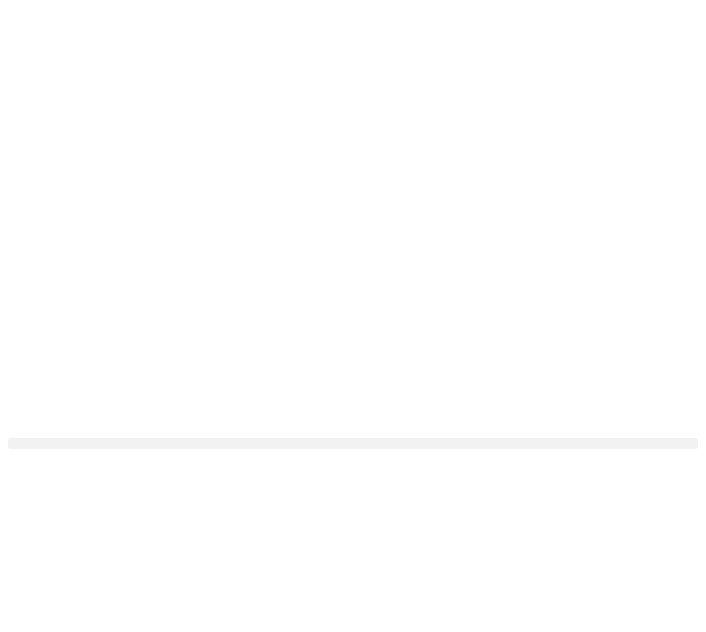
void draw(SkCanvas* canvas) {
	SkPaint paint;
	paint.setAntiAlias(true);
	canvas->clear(0xffffffff);
	paint.setColor(0xfff2f2f2);
	canvas->drawRoundRect(SkRect::MakeXYWH(8, 438, 690, 11), 3, 3, paint);
}
